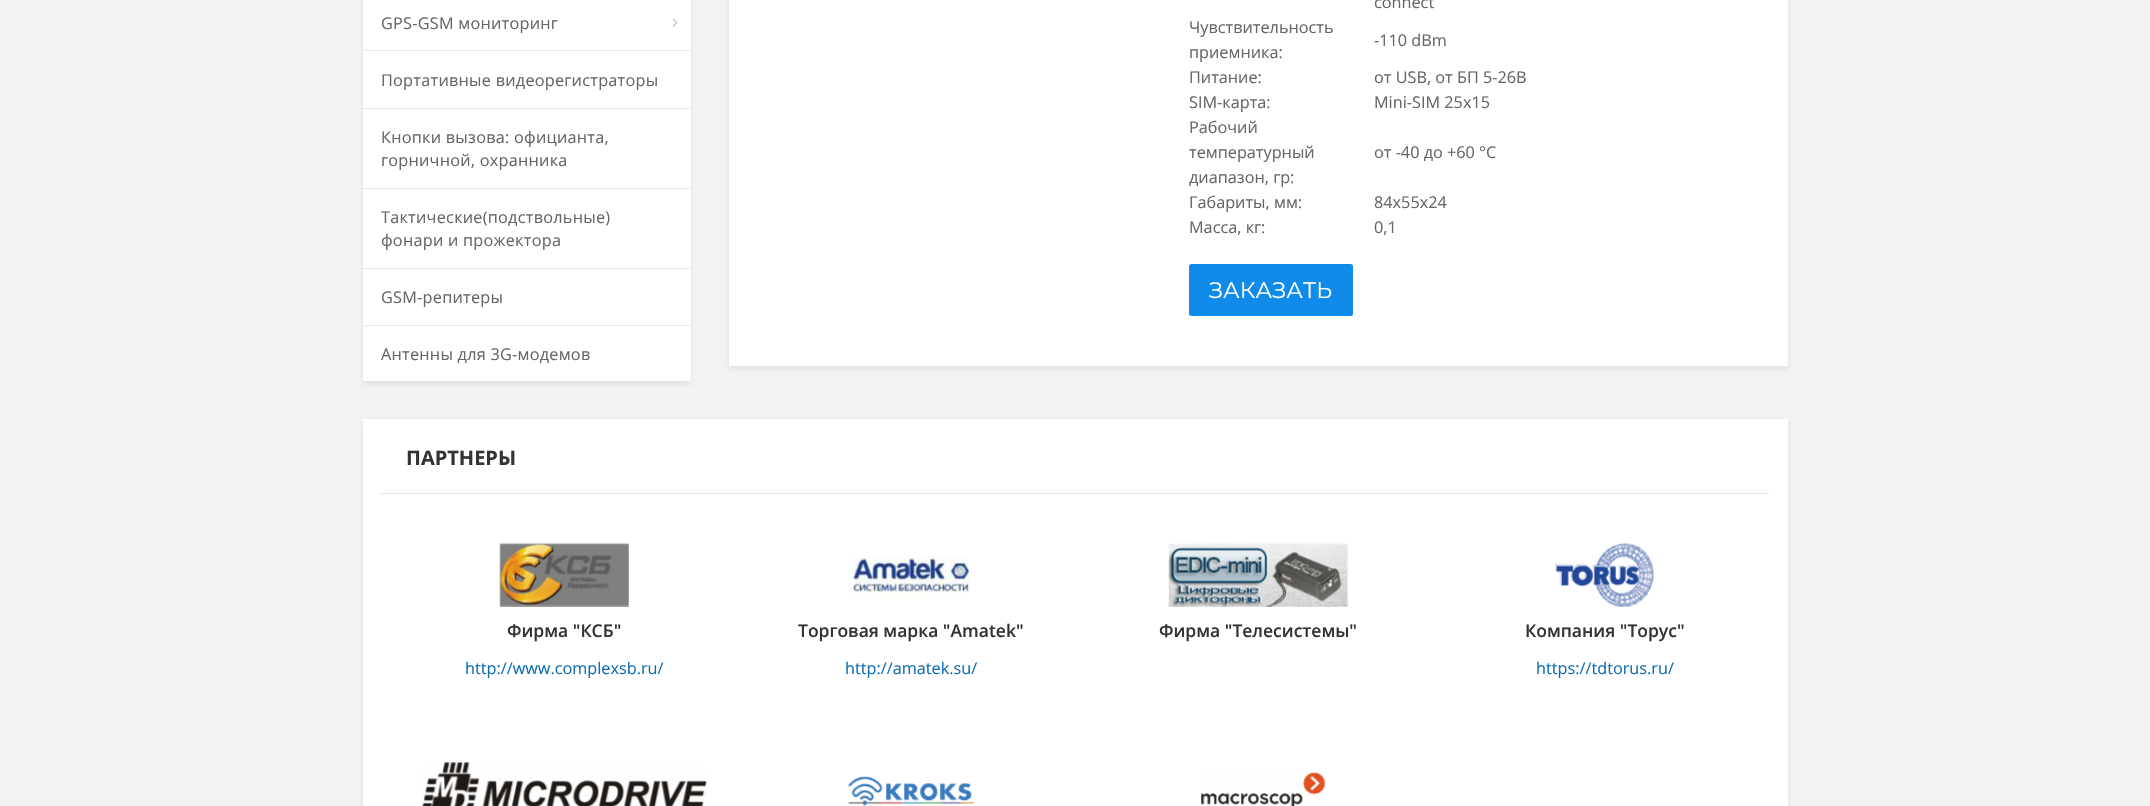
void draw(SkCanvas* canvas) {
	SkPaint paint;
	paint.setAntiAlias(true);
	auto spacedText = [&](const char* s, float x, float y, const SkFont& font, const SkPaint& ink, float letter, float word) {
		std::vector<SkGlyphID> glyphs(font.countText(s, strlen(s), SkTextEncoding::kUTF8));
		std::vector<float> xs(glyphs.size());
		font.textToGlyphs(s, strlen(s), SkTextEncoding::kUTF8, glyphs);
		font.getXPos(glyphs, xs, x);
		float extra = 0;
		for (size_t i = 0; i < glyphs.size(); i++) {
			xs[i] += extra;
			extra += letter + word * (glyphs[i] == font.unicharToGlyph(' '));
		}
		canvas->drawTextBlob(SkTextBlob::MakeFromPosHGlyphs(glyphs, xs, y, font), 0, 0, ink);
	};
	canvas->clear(0xfff3f3f3);
	paint.setColor(0x14000000);
	paint.setMaskFilter(SkMaskFilter::MakeBlur(kNormal_SkBlurStyle, 2.5));
	canvas->drawRoundRect(SkRect::MakeXYWH(363, -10, 328, 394), 2.5, 2.5, paint);
	paint.setMaskFilter(nullptr);
	paint.setColor(0xffffffff);
	canvas->drawRoundRect(SkRect::MakeXYWH(363, -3, 328, 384), 2.5, 2.5, paint);
	paint.setColor(0xffeaeaea);
	canvas->drawRect(SkRect::MakeXYWH(363, 50, 328, 1), paint);
	SkFont f1(fontMgr->matchFamilyStyle("Open Sans", SkFontStyle::Normal()), 16.25);
	f1.setSubpixel(true);
	paint.setColor(0xff666666);
	spacedText("GPS-GSM мониторинг", 381, 29, f1, paint, 0.25, 0);
	canvas->drawImageRect(SkImages::DeferredFromEncodedData(SkData::MakeFromFileName("img1.png")), SkRect::MakeXYWH(672, 18, 6, 9), SkSamplingOptions());
	paint.setColor(0xffeaeaea);
	canvas->drawRect(SkRect::MakeXYWH(363, 108, 328, 1), paint);
	paint.setColor(0xff666666);
	spacedText("Портативные видеорегистраторы", 381, 86, f1, paint, 0.25, 0);
	paint.setColor(0xffeaeaea);
	canvas->drawRect(SkRect::MakeXYWH(363, 188, 328, 1), paint);
	paint.setColor(0xff666666);
	spacedText("Кнопки вызова: официанта,", 381, 143, f1, paint, 0.25, 0);
	spacedText("горничной, охранника", 381, 166, f1, paint, 0.25, 0);
	paint.setColor(0xffeaeaea);
	canvas->drawRect(SkRect::MakeXYWH(363, 268, 328, 1), paint);
	paint.setColor(0xff666666);
	spacedText("Тактические(подствольные)", 381, 223, f1, paint, 0.25, 0);
	spacedText("фонари и прожектора", 381, 246, f1, paint, 0.25, 0);
	paint.setColor(0xffeaeaea);
	canvas->drawRect(SkRect::MakeXYWH(363, 325, 328, 1), paint);
	paint.setColor(0xff666666);
	spacedText("GSM-репитеры", 381, 303, f1, paint, 0.25, 0);
	spacedText("Антенны для 3G-модемов", 381, 360, f1, paint, 0.25, 0);
	paint.setColor(0x14000000);
	paint.setMaskFilter(SkMaskFilter::MakeBlur(kNormal_SkBlurStyle, 2.5));
	canvas->drawRect(SkRect::MakeXYWH(729, -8, 1059, 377), paint);
	paint.setMaskFilter(nullptr);
	paint.setColor(0xffffffff);
	canvas->drawRect(SkRect::MakeXYWH(729, 0, 1059, 366), paint);
	paint.setColor(0xff666666);
	canvas->drawString("connect", 1374, 8, f1, paint);
	canvas->drawString("Чувствительность", 1189, 33, f1, paint);
	canvas->drawString("приемника:", 1189, 58, f1, paint);
	canvas->drawString("-110 dBm", 1374, 46, f1, paint);
	canvas->drawString("Питание:", 1189, 83, f1, paint);
	canvas->drawString("от USB, от БП 5-26В", 1374, 83, f1, paint);
	canvas->drawString("SIM-карта:", 1189, 108, f1, paint);
	canvas->drawString("Mini-SIM 25x15", 1374, 108, f1, paint);
	canvas->drawString("Рабочий", 1189, 133, f1, paint);
	canvas->drawString("температурный", 1189, 158, f1, paint);
	canvas->drawString("диапазон, гр:", 1189, 183, f1, paint);
	canvas->drawString("от -40 до +60 °C", 1374, 158, f1, paint);
	canvas->drawString("Габариты, мм:", 1189, 208, f1, paint);
	canvas->drawString("84х55х24", 1374, 208, f1, paint);
	canvas->drawString("Масса, кг:", 1189, 233, f1, paint);
	canvas->drawString("0,1", 1374, 233, f1, paint);
	paint.setColor(0xff108bea);
	canvas->drawRoundRect(SkRect::MakeXYWH(1189, 264, 164, 52), 2.5, 2.5, paint);
	SkFont f2(fontMgr->matchFamilyStyle("Montserrat", SkFontStyle::Normal()), 22.5);
	f2.setSubpixel(true);
	paint.setColor(0xffffffff);
	canvas->drawString("ЗАКАЗАТЬ", 1209, 298, f2, paint);
	paint.setColor(0x14000000);
	paint.setMaskFilter(SkMaskFilter::MakeBlur(kNormal_SkBlurStyle, 2.5));
	canvas->drawRect(SkRect::MakeXYWH(363, 421, 1425, 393), paint);
	paint.setMaskFilter(nullptr);
	paint.setColor(0xffffffff);
	canvas->drawRect(SkRect::MakeXYWH(363, 419, 1425, 387), paint);
	paint.setColor(0xffe3e3e3);
	canvas->drawRect(SkRect::MakeXYWH(381, 493, 1388, 1), paint);
	SkFont f3(fontMgr->matchFamilyStyle("Open Sans", SkFontStyle::Bold()), 20);
	f3.setSubpixel(true);
	paint.setColor(0xff333333);
	canvas->drawString("ПАРТНЕРЫ", 406, 465, f3, paint);
	canvas->drawImageRect(SkImages::DeferredFromEncodedData(SkData::MakeFromFileName("img2.png")), SkRect::MakeXYWH(499, 543, 130, 64), SkSamplingOptions());
	SkFont f4(fontMgr->matchFamilyStyle("Open Sans", SkFontStyle(600, SkFontStyle::kNormal_Width, SkFontStyle::kUpright_Slant)), 17.5);
	f4.setSubpixel(true);
	canvas->drawString("Фирма \"КСБ\"", 507, 637, f4, paint);
	paint.setColor(0xff0f6cb2);
	canvas->drawString("http://www.complexsb.ru/", 465, 674, f1, paint);
	canvas->drawImageRect(SkImages::DeferredFromEncodedData(SkData::MakeFromFileName("img3.png")), SkRect::MakeXYWH(853, 557, 116, 43), SkSamplingOptions());
	paint.setColor(0xff333333);
	canvas->drawString("Торговая марка \"Amatek\"", 798, 637, f4, paint);
	paint.setColor(0xff0f6cb2);
	canvas->drawString("http://amatek.su/", 845, 674, f1, paint);
	canvas->drawImageRect(SkImages::DeferredFromEncodedData(SkData::MakeFromFileName("img4.png")), SkRect::MakeXYWH(1168, 543, 180, 64), SkSamplingOptions());
	paint.setColor(0xff333333);
	canvas->drawString("Фирма \"Телесистемы\"", 1159, 637, f4, paint);
	canvas->drawImageRect(SkImages::DeferredFromEncodedData(SkData::MakeFromFileName("img5.png")), SkRect::MakeXYWH(1554, 543, 100, 64), SkSamplingOptions());
	canvas->drawString("Компания \"Торус\"", 1525, 637, f4, paint);
	paint.setColor(0xff0f6cb2);
	canvas->drawString("https://tdtorus.ru/", 1536, 674, f1, paint);
	canvas->drawImageRect(SkImages::DeferredFromEncodedData(SkData::MakeFromFileName("img6.png")), SkRect::MakeXYWH(422, 762, 285, 44), SkSamplingOptions());
	canvas->drawImageRect(SkImages::DeferredFromEncodedData(SkData::MakeFromFileName("img7.png")), SkRect::MakeXYWH(848, 776, 127, 30), SkSamplingOptions());
	canvas->drawImageRect(SkImages::DeferredFromEncodedData(SkData::MakeFromFileName("img8.png")), SkRect::MakeXYWH(1201, 772, 125, 34), SkSamplingOptions());
}
